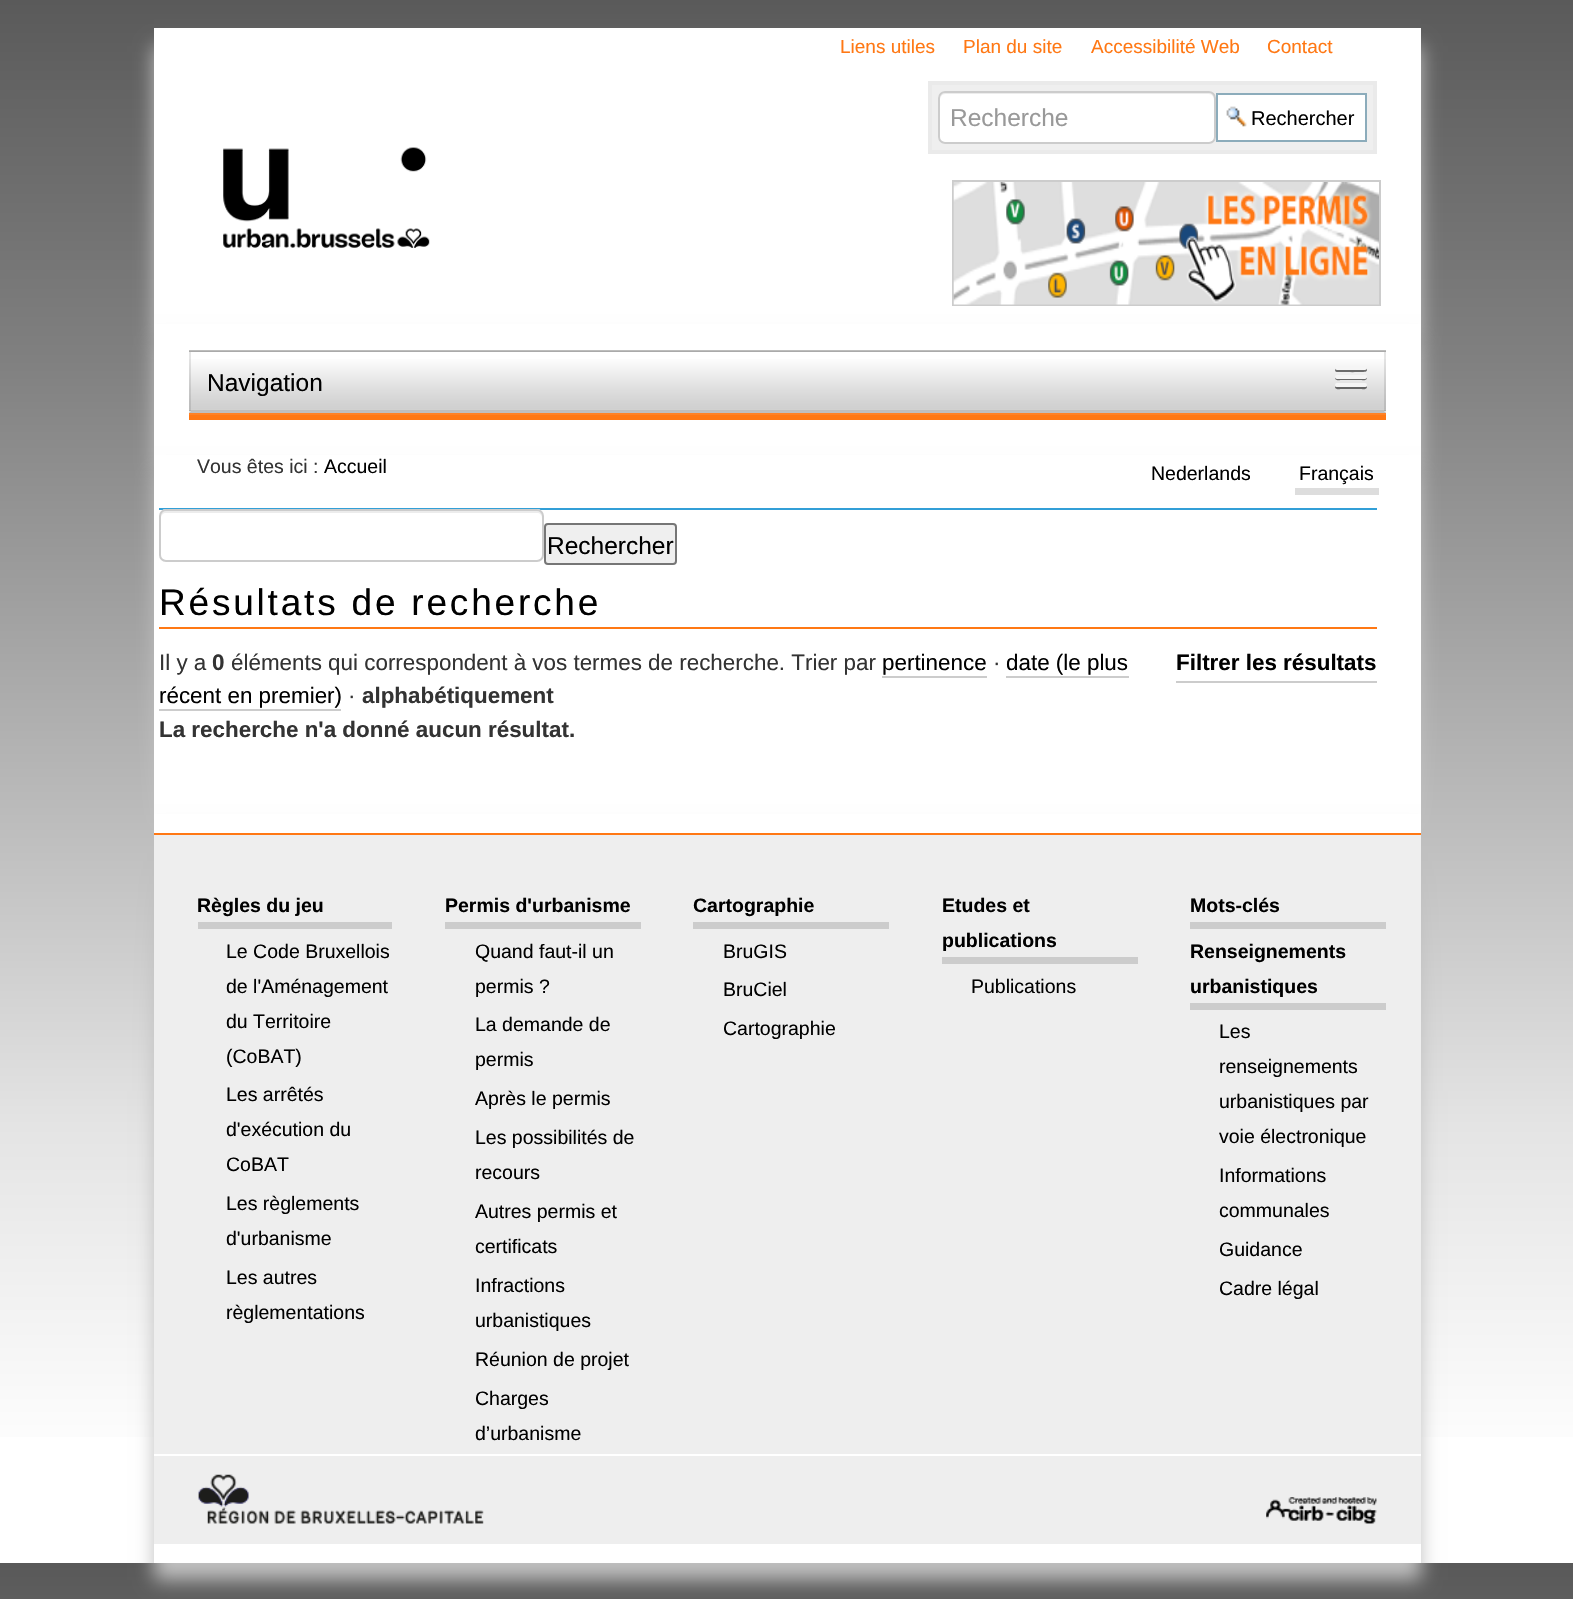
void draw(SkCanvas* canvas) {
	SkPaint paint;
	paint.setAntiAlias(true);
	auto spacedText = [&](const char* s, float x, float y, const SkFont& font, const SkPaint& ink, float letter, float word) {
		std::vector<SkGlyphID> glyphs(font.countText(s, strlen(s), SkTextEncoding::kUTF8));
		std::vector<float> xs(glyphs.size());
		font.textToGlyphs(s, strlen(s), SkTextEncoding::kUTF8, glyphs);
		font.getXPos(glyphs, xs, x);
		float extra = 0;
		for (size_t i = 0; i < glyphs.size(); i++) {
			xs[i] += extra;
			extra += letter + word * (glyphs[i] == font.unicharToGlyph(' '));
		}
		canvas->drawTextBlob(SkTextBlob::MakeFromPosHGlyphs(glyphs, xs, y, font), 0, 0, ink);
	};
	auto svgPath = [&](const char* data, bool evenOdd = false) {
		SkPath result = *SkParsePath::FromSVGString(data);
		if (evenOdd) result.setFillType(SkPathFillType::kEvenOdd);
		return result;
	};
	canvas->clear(0xffffffff);
	{
		const SkColor colors[] = {0xff5a5a5a, 0xff808080, 0xffe4e4e4, 0xffffffff, 0xffffffff};
		const float stops[] = {0, 0.23, 0.72, 0.94, 1};
		const SkPoint ends[] = {{787, 0}, {787, 1563}};
		paint.setShader(SkGradientShader::MakeLinear(ends, colors, stops, 5, SkTileMode::kClamp));
		paint.setAlpha(255);
	}
	canvas->drawRect(SkRect::MakeXYWH(0, 0, 1573, 1437), paint);
	{
		const SkColor colors[] = {0xff595959, 0xff808080, 0xffe3e3e3, 0xffffffff, 0xffffffff};
		const float stops[] = {0, 0.23, 0.72, 0.94, 1};
		const SkPoint ends[] = {{787, 1563}, {787, 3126}};
		paint.setShader(SkGradientShader::MakeLinear(ends, colors, stops, 5, SkTileMode::kClamp));
		paint.setAlpha(255);
	}
	canvas->drawRect(SkRect::MakeXYWH(0, 1563, 1573, 36), paint);
	paint.setShader(nullptr);
	paint.setColor(0xffc0c0c0);
	paint.setMaskFilter(SkMaskFilter::MakeBlur(kNormal_SkBlurStyle, 9));
	canvas->drawRect(SkRect::MakeXYWH(154, 46, 1267, 295), paint);
	paint.setMaskFilter(nullptr);
	paint.setColor(0xffffffff);
	canvas->drawRect(SkRect::MakeXYWH(154, 28, 1267, 296), paint);
	SkFont f1(fontMgr->matchFamilyStyle("Liberation Sans", SkFontStyle::Normal()), 19);
	f1.setSubpixel(true);
	paint.setColor(0xffff7814);
	canvas->drawString("Liens utiles", 840, 53, f1, paint);
	canvas->drawString("Plan du site", 963, 53, f1, paint);
	canvas->drawString("Accessibilité Web", 1091, 53, f1, paint);
	canvas->drawString("Contact", 1267, 53, f1, paint);
	paint.setColor(0xffefefef);
	canvas->drawRect(SkRect::MakeXYWH(930, 83, 445, 69), paint);
	paint.setStroke(true);
	paint.setStrokeWidth(4);
	paint.setColor(0xffeaeaea);
	canvas->drawRect(SkRect::MakeXYWH(930, 83, 445, 69), paint);
	paint.setStroke(false);
	paint.setColor(0xffffffff);
	canvas->drawRoundRect(SkRect::MakeXYWH(938, 91, 278, 53), 7, 7, paint);
	paint.setColor(0xffececec);
	canvas->drawPath(svgPath("M945 94H1209C1212 94 1214 97 1214 100V138V141C1214 140 1215 138 1215 137V98C1215 95 1213 93 1210 93H945C942 93 940 95 940 98V100C940 97 942 94 945 94Z"), paint);
	paint.setStroke(true);
	paint.setStrokeWidth(2);
	paint.setColor(0xffcccccc);
	canvas->drawRoundRect(SkRect::MakeXYWH(939, 92, 276, 51), 6, 6, paint);
	SkFont f2(fontMgr->matchFamilyStyle("Liberation Sans", SkFontStyle::Normal()), 24.5);
	f2.setSubpixel(true);
	paint.setStroke(false);
	paint.setColor(0xff999999);
	canvas->drawString("Recherche", 950, 126, f2, paint);
	paint.setColor(0xffffffff);
	canvas->drawRect(SkRect::MakeXYWH(1218, 95, 147, 45), paint);
	canvas->drawImageRect(SkImages::DeferredFromEncodedData(SkData::MakeFromFileName("img1.png")), SkRect::MakeXYWH(1226, 106, 21, 21), SkSamplingOptions());
	paint.setStroke(true);
	paint.setColor(0xff8cacbb);
	canvas->drawRect(SkRect::MakeXYWH(1217, 94, 149, 47), paint);
	SkFont f3(fontMgr->matchFamilyStyle("Liberation Sans", SkFontStyle::Normal()), 20);
	f3.setSubpixel(true);
	paint.setStroke(false);
	paint.setColor(0xff000000);
	canvas->drawString("Rechercher", 1251, 125, f3, paint);
	paint.setStroke(true);
	paint.setColor(0xffcccccc);
	canvas->drawRect(SkRect::MakeXYWH(953, 181, 427, 124), paint);
	canvas->drawImageRect(SkImages::DeferredFromEncodedData(SkData::MakeFromFileName("img2.png")), SkRect::MakeXYWH(953, 182, 426, 123), SkSamplingOptions());
	canvas->drawImageRect(SkImages::DeferredFromEncodedData(SkData::MakeFromFileName("img3.png")), SkRect::MakeXYWH(223, 147, 207, 101), SkSamplingOptions());
	paint.setStroke(false);
	paint.setColor(0xffc0c0c0);
	paint.setMaskFilter(SkMaskFilter::MakeBlur(kNormal_SkBlurStyle, 9));
	canvas->drawRect(SkRect::MakeXYWH(154, 341, 1267, 132), paint);
	paint.setMaskFilter(nullptr);
	paint.setColor(0xffffffff);
	canvas->drawRect(SkRect::MakeXYWH(154, 324, 1267, 131), paint);
	paint.setColor(0xffff7814);
	canvas->drawRect(SkRect::MakeXYWH(189, 415, 1197, 5), paint);
	paint.setColor(0xffff8226);
	canvas->drawRect(SkRect::MakeXYWH(189, 413, 1197, 2), paint);
	{
		const SkColor colors[] = {0xffffffff, 0xffffffff, 0xffdddddd, 0xffd2d2d2, 0xffd0d0d0, 0xffd5d5d3, 0xffadadad};
		const float stops[] = {0, 0.08, 0.66, 0.89, 0.97, 0.98, 1};
		const SkPoint ends[] = {{788, 292}, {788, 352}};
		paint.setShader(SkGradientShader::MakeLinear(ends, colors, stops, 7, SkTileMode::kClamp));
		paint.setAlpha(255);
	}
	canvas->drawRect(SkRect::MakeXYWH(189, 350, 1197, 2), paint);
	{
		const SkColor colors[] = {0xffffffff, 0xffffffff, 0xffdddddd, 0xffd2d2d2, 0xffd0d0d0, 0xffd5d5d3, 0xffadadad};
		const float stops[] = {0, 0.08, 0.66, 0.89, 0.97, 0.98, 1};
		const SkPoint ends[] = {{788, 352}, {788, 411}};
		paint.setShader(SkGradientShader::MakeLinear(ends, colors, stops, 7, SkTileMode::kClamp));
		paint.setAlpha(255);
	}
	canvas->drawRect(SkRect::MakeXYWH(189, 359, 1197, 52), paint);
	paint.setShader(nullptr);
	paint.setColor(0x1a000000);
	canvas->drawPath(svgPath("M189 350H1386L1384 352H191Z"), paint);
	canvas->drawPath(svgPath("M1386 350V413L1384 411V352Z"), paint);
	paint.setColor(0x40000000);
	canvas->drawPath(svgPath("M1386 413H189L191 411H1384Z"), paint);
	paint.setColor(0x1a000000);
	canvas->drawPath(svgPath("M189 413V350L191 352V411Z"), paint);
	paint.setColor(0xff000000);
	canvas->drawString("Navigation", 207, 391, f2, paint);
	paint.setColor(0xff6c6c6c);
	canvas->drawPath(svgPath("M1335.5 368.5C1334.5 370 1335 372 1337 372C1340.5 372 1365 372.5 1366 371.5C1367 371 1367.5 369.5 1366.5 368.5L1365 369H1337Z"), paint);
	paint.setColor(0xfff5f5f5);
	canvas->drawRoundRect(SkRect::MakeXYWH(1335, 366, 32, 4), 2, 2, paint);
	paint.setColor(0xff696969);
	canvas->drawPath(svgPath("M1335.5 377L1335 378.5C1335.5 381 1340.5 380 1341.5 380H1360.5C1361.5 380 1366.5 381 1367 378.5L1366.5 377C1366.5 377.5 1366 378 1365 378H1337C1336 378 1335.5 377.5 1335.5 377Z"), paint);
	paint.setColor(0xfff5f5f5);
	canvas->drawRoundRect(SkRect::MakeXYWH(1335, 375, 32, 4), 2, 2, paint);
	paint.setColor(0xff656565);
	canvas->drawPath(svgPath("M1335.5 386L1335 387.5C1335.5 390 1340.5 389 1341.5 389H1360.5C1361.5 389 1366.5 390 1367 387.5L1366.5 386C1366.5 386.5 1365.5 387 1365 387H1337C1336.5 387 1335.5 386.5 1335.5 386Z"), paint);
	paint.setColor(0xfff5f5f5);
	canvas->drawRoundRect(SkRect::MakeXYWH(1335, 383, 32, 4), 2, 2, paint);
	paint.setColor(0xffc0c0c0);
	paint.setMaskFilter(SkMaskFilter::MakeBlur(kNormal_SkBlurStyle, 9));
	canvas->drawRect(SkRect::MakeXYWH(154, 473, 1267, 358), paint);
	paint.setMaskFilter(nullptr);
	paint.setColor(0xffffffff);
	canvas->drawRect(SkRect::MakeXYWH(154, 455, 1267, 359), paint);
	SkFont f4(fontMgr->matchFamilyStyle("Liberation Sans", SkFontStyle::Normal()), 19.5);
	f4.setSubpixel(true);
	paint.setColor(0xff333333);
	canvas->drawString("Vous êtes ici :", 197, 473, f4, paint);
	paint.setColor(0xff000000);
	canvas->drawString("Accueil", 324, 473, f4, paint);
	canvas->drawString("Nederlands", 1151, 480, f4, paint);
	canvas->drawString("Français", 1299, 480, f4, paint);
	paint.setColor(0xffdddddd);
	canvas->drawRect(SkRect::MakeXYWH(1295, 488, 84, 7), paint);
	paint.setColor(0xff329fd7);
	canvas->drawRect(SkRect::MakeXYWH(159, 508, 1218, 2), paint);
	paint.setColor(0xffffffff);
	canvas->drawRoundRect(SkRect::MakeXYWH(159, 509, 385, 53), 7, 7, paint);
	paint.setColor(0xffececec);
	canvas->drawPath(svgPath("M166 513H537C540 513 542 515 542 518V556V559C542 558 543 556 543 555V516C543 513 541 511 538 511H166C163 511 161 513 161 516V518C161 515 163 513 166 513Z"), paint);
	paint.setStroke(true);
	paint.setColor(0xffcccccc);
	canvas->drawRoundRect(SkRect::MakeXYWH(160, 510, 383, 51), 6, 6, paint);
	paint.setStroke(false);
	paint.setColor(0xffefefef);
	canvas->drawRoundRect(SkRect::MakeXYWH(545, 524, 131, 40), 3, 3, paint);
	paint.setStroke(true);
	paint.setColor(0xff767676);
	canvas->drawRoundRect(SkRect::MakeXYWH(545, 524, 131, 40), 3, 3, paint);
	paint.setStroke(false);
	paint.setColor(0xff000000);
	canvas->drawString("Rechercher", 547, 554, f2, paint);
	paint.setColor(0xffff7814);
	canvas->drawRect(SkRect::MakeXYWH(159, 627, 1218, 2), paint);
	SkFont f5(fontMgr->matchFamilyStyle("Liberation Sans", SkFontStyle::Normal()), 37);
	f5.setSubpixel(true);
	paint.setColor(0xff000000);
	spacedText("Résultats de recherche", 159, 615, f5, paint, 2.8, 0);
	SkFont f6(fontMgr->matchFamilyStyle("Liberation Sans", SkFontStyle::Normal()), 22.4);
	f6.setSubpixel(true);
	paint.setColor(0xff333333);
	canvas->drawString("Il y a", 159, 670, f6, paint);
	SkFont f7(fontMgr->matchFamilyStyle("Liberation Sans", SkFontStyle::Bold()), 22.4);
	f7.setSubpixel(true);
	canvas->drawString("0", 212, 670, f7, paint);
	canvas->drawString("éléments qui correspondent à vos termes de recherche. Trier par", 231, 670, f6, paint);
	paint.setColor(0xff000000);
	canvas->drawString("pertinence", 882, 670, f6, paint);
	paint.setColor(0xffcccccc);
	canvas->drawRect(SkRect::MakeXYWH(882, 676, 105, 2), paint);
	paint.setColor(0xff333333);
	canvas->drawString("·", 993, 670, f6, paint);
	paint.setColor(0xff000000);
	canvas->drawString("date (le plus", 1006, 670, f6, paint);
	paint.setColor(0xffcccccc);
	canvas->drawRect(SkRect::MakeXYWH(1006, 676, 123, 2), paint);
	canvas->drawRect(SkRect::MakeXYWH(1176, 681, 201, 2), paint);
	paint.setColor(0xff000000);
	canvas->drawString("Filtrer les résultats", 1176, 670, f7, paint);
	canvas->drawString("récent en premier)", 159, 703, f6, paint);
	paint.setColor(0xffcccccc);
	canvas->drawRect(SkRect::MakeXYWH(159, 709, 182, 2), paint);
	paint.setColor(0xff333333);
	canvas->drawString("·", 348, 703, f6, paint);
	canvas->drawString("alphabétiquement", 362, 703, f7, paint);
	canvas->drawString("La recherche n'a donné aucun résultat.", 159, 737, f7, paint);
	paint.setColor(0xffc0c0c0);
	paint.setMaskFilter(SkMaskFilter::MakeBlur(kNormal_SkBlurStyle, 9));
	canvas->drawRect(SkRect::MakeXYWH(154, 831, 1267, 749), paint);
	paint.setMaskFilter(nullptr);
	paint.setColor(0xffffffff);
	canvas->drawRect(SkRect::MakeXYWH(154, 814, 1267, 749), paint);
	paint.setColor(0xffeeeeee);
	canvas->drawRect(SkRect::MakeXYWH(154, 835, 1267, 619), paint);
	paint.setColor(0xffff7814);
	canvas->drawRect(SkRect::MakeXYWH(154, 833, 1267, 2), paint);
	paint.setColor(0xffcccccc);
	canvas->drawRect(SkRect::MakeXYWH(198, 922, 194, 7), paint);
	SkFont f8(fontMgr->matchFamilyStyle("Liberation Sans", SkFontStyle::Bold()), 19.5);
	f8.setSubpixel(true);
	paint.setColor(0xff000000);
	canvas->drawString("Règles du jeu", 197, 912, f8, paint);
	canvas->drawString("Le Code Bruxellois", 226, 958, f4, paint);
	canvas->drawString("de l'Aménagement", 226, 993, f4, paint);
	canvas->drawString("du Territoire", 226, 1028, f4, paint);
	canvas->drawString("(CoBAT)", 226, 1063, f4, paint);
	canvas->drawString("Les arrêtés", 226, 1101, f4, paint);
	canvas->drawString("d'exécution du", 226, 1136, f4, paint);
	canvas->drawString("CoBAT", 226, 1171, f4, paint);
	canvas->drawString("Les règlements", 226, 1210, f4, paint);
	canvas->drawString("d'urbanisme", 226, 1245, f4, paint);
	canvas->drawString("Les autres", 226, 1284, f4, paint);
	canvas->drawString("règlementations", 226, 1319, f4, paint);
	paint.setColor(0xffcccccc);
	canvas->drawRect(SkRect::MakeXYWH(445, 922, 196, 7), paint);
	paint.setColor(0xff000000);
	canvas->drawString("Permis d'urbanisme", 445, 912, f8, paint);
	canvas->drawString("Quand faut-il un", 475, 958, f4, paint);
	canvas->drawString("permis ?", 475, 993, f4, paint);
	canvas->drawString("La demande de", 475, 1031, f4, paint);
	canvas->drawString("permis", 475, 1066, f4, paint);
	canvas->drawString("Après le permis", 475, 1105, f4, paint);
	canvas->drawString("Les possibilités de", 475, 1144, f4, paint);
	canvas->drawString("recours", 475, 1179, f4, paint);
	canvas->drawString("Autres permis et", 475, 1218, f4, paint);
	canvas->drawString("certificats", 475, 1253, f4, paint);
	canvas->drawString("Infractions", 475, 1292, f4, paint);
	canvas->drawString("urbanistiques", 475, 1327, f4, paint);
	canvas->drawString("Réunion de projet", 475, 1366, f4, paint);
	canvas->drawString("Charges", 475, 1405, f4, paint);
	canvas->drawString("d’urbanisme", 475, 1440, f4, paint);
	paint.setColor(0xffcccccc);
	canvas->drawRect(SkRect::MakeXYWH(693, 922, 196, 7), paint);
	paint.setColor(0xff000000);
	canvas->drawString("Cartographie", 693, 912, f8, paint);
	canvas->drawString("BruGIS", 723, 958, f4, paint);
	canvas->drawString("BruCiel", 723, 996, f4, paint);
	canvas->drawString("Cartographie", 723, 1035, f4, paint);
	paint.setColor(0xffcccccc);
	canvas->drawRect(SkRect::MakeXYWH(942, 957, 196, 7), paint);
	paint.setColor(0xff000000);
	canvas->drawString("Etudes et", 942, 912, f8, paint);
	canvas->drawString("publications", 942, 947, f8, paint);
	canvas->drawString("Publications", 971, 993, f4, paint);
	paint.setColor(0xffcccccc);
	canvas->drawRect(SkRect::MakeXYWH(1190, 922, 196, 7), paint);
	paint.setColor(0xff000000);
	canvas->drawString("Mots-clés", 1190, 912, f8, paint);
	paint.setColor(0xffcccccc);
	canvas->drawRect(SkRect::MakeXYWH(1190, 1003, 196, 7), paint);
	paint.setColor(0xff000000);
	canvas->drawString("Renseignements", 1190, 958, f8, paint);
	canvas->drawString("urbanistiques", 1190, 993, f8, paint);
	canvas->drawString("Les", 1219, 1038, f4, paint);
	canvas->drawString("renseignements", 1219, 1073, f4, paint);
	canvas->drawString("urbanistiques par", 1219, 1108, f4, paint);
	canvas->drawString("voie électronique", 1219, 1143, f4, paint);
	canvas->drawString("Informations", 1219, 1182, f4, paint);
	canvas->drawString("communales", 1219, 1217, f4, paint);
	canvas->drawString("Guidance", 1219, 1256, f4, paint);
	canvas->drawString("Cadre légal", 1219, 1295, f4, paint);
	paint.setColor(0xffeeeeee);
	canvas->drawRect(SkRect::MakeXYWH(154, 1456, 1267, 88), paint);
	canvas->drawImageRect(SkImages::DeferredFromEncodedData(SkData::MakeFromFileName("img4.png")), SkRect::MakeXYWH(198, 1474, 286, 50), SkSamplingOptions());
	canvas->drawImageRect(SkImages::DeferredFromEncodedData(SkData::MakeFromFileName("img5.png")), SkRect::MakeXYWH(1266, 1497, 111, 27), SkSamplingOptions());
}
